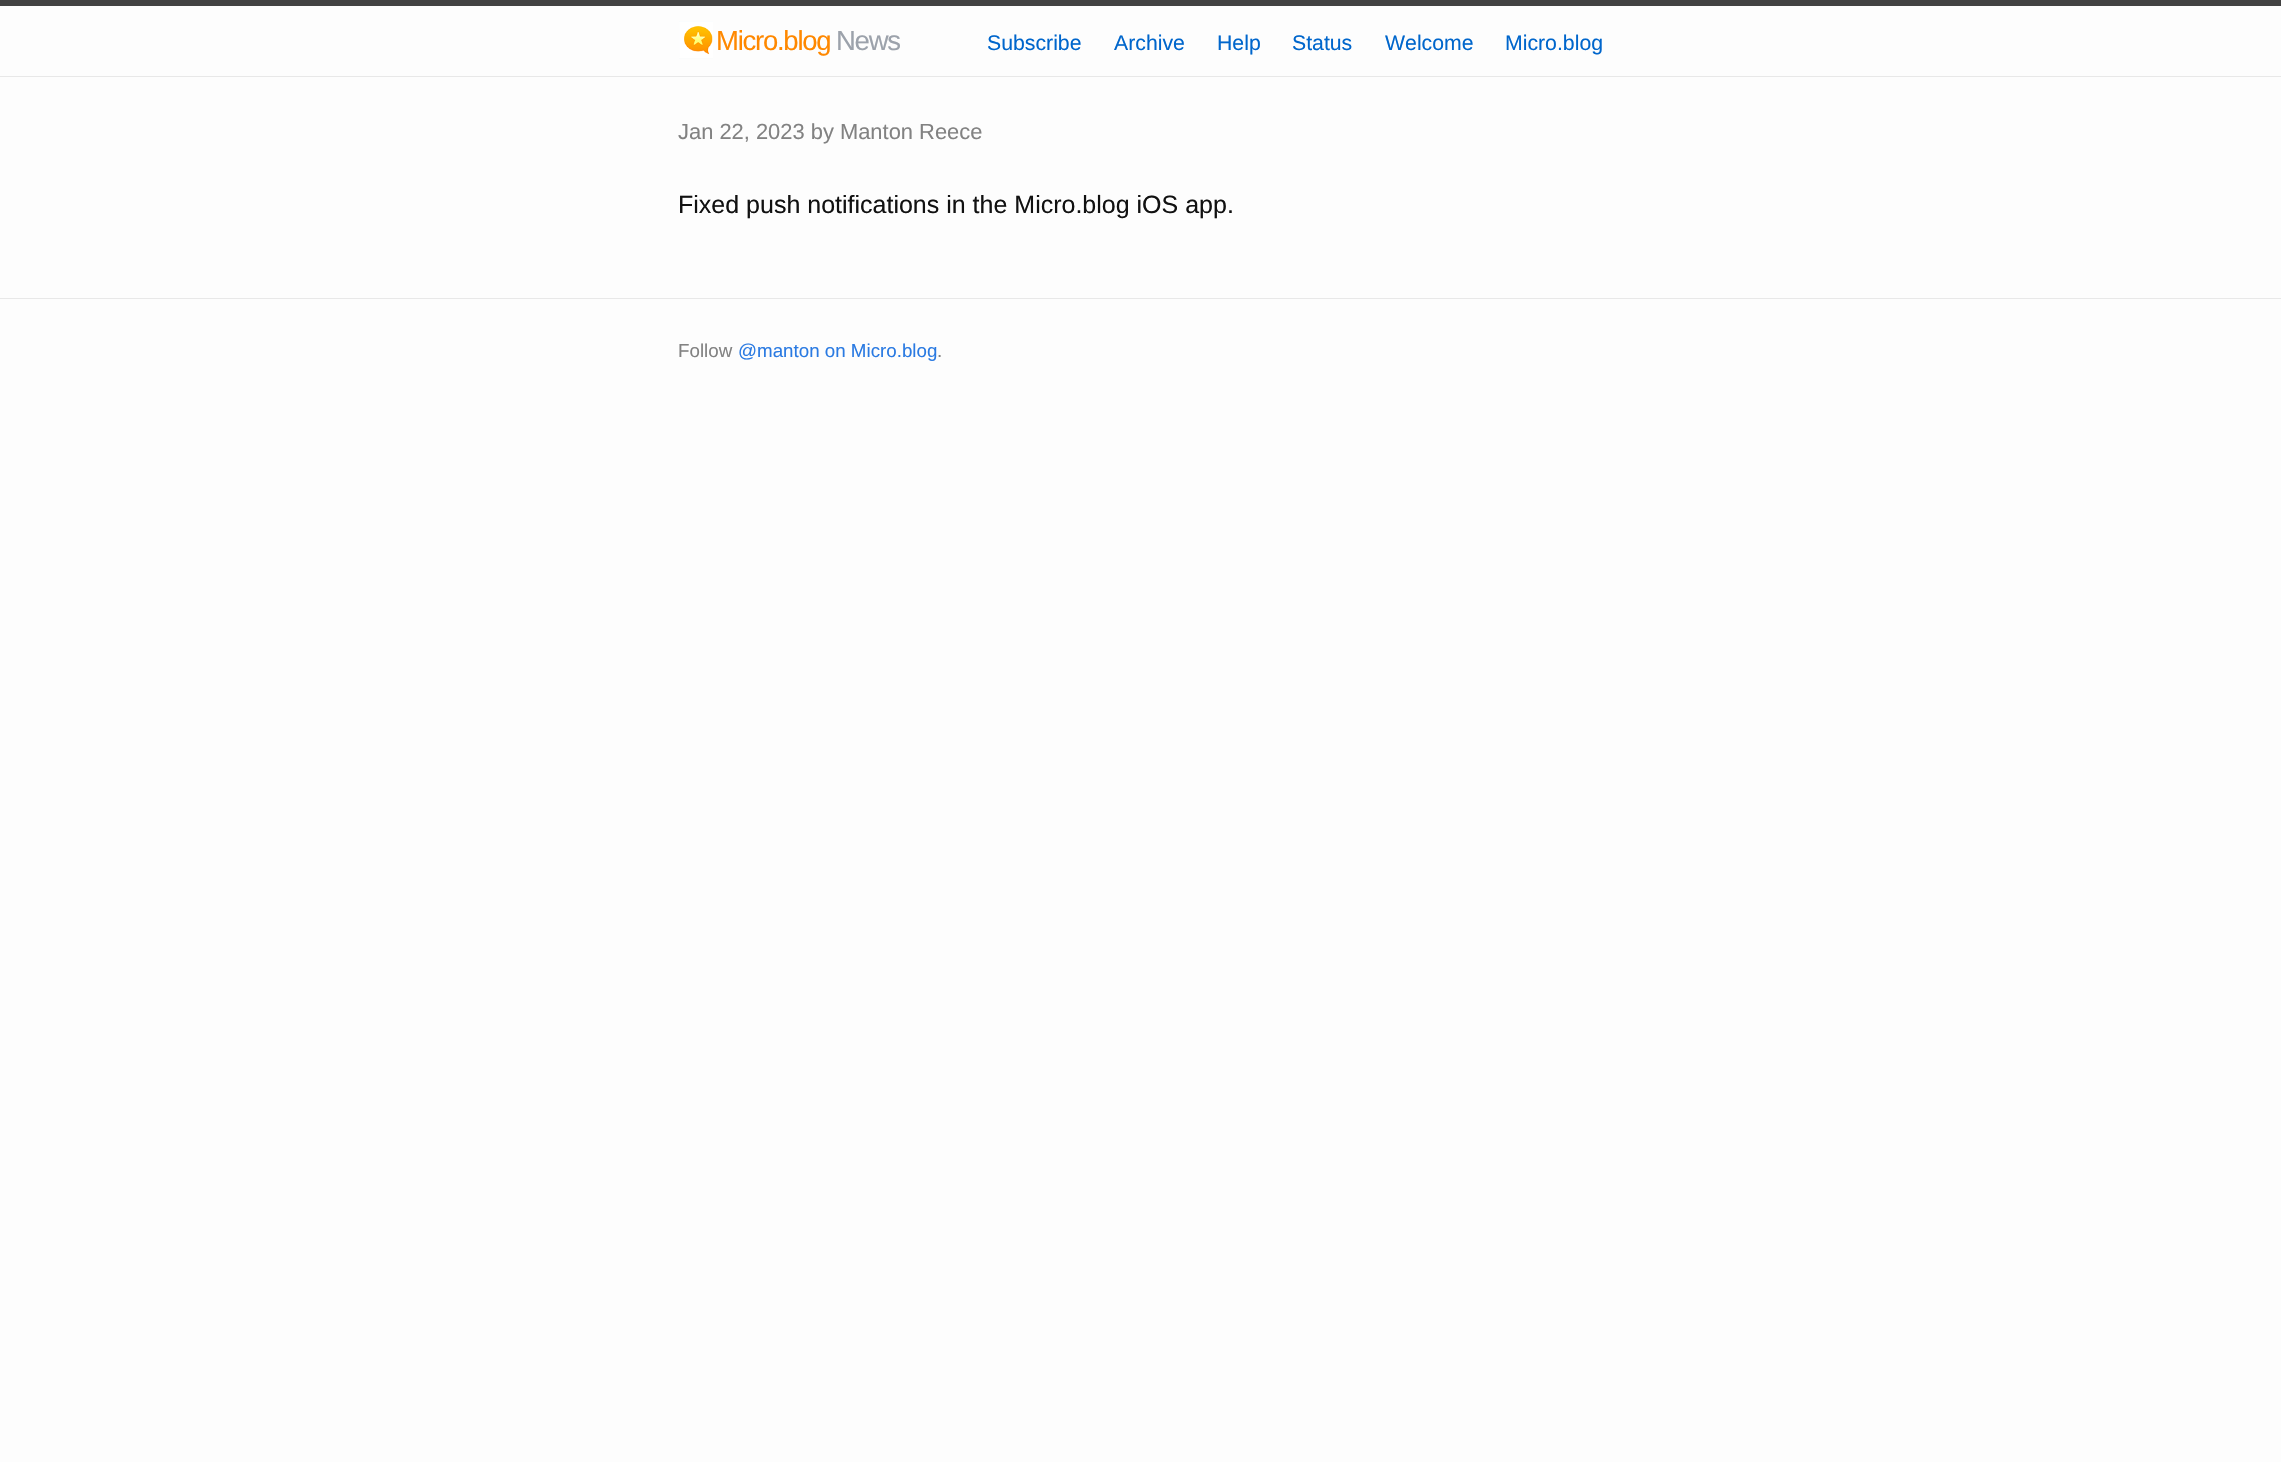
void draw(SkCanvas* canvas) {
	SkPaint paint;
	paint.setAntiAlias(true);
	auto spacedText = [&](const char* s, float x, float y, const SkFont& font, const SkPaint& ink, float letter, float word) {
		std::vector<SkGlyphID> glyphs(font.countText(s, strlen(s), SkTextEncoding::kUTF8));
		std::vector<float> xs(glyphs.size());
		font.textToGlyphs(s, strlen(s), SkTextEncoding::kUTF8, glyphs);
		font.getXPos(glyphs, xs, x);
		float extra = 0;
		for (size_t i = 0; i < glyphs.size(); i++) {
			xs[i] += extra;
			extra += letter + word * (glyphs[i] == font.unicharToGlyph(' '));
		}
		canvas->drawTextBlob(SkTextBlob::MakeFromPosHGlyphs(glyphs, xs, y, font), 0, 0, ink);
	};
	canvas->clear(0xfffdfdfd);
	paint.setColor(0xff424242);
	canvas->drawRect(SkRect::MakeXYWH(0, 0, 2281, 6), paint);
	paint.setColor(0xffe8e8e8);
	canvas->drawRect(SkRect::MakeXYWH(0, 76, 2281, 1), paint);
	canvas->drawImageRect(SkImages::DeferredFromEncodedData(SkData::MakeFromFileName("img1.png")), SkRect::MakeXYWH(679, 21, 34, 38), SkSamplingOptions());
	SkFont f1(fontMgr->matchFamilyStyle("Liberation Sans", SkFontStyle::Normal()), 27.5);
	f1.setSubpixel(true);
	paint.setColor(0xffff8800);
	spacedText("Micro.blog", 716, 50, f1, paint, -1.25, 0);
	paint.setColor(0xff9ca2ab);
	spacedText("News", 836, 50, f1, paint, -1.25, 0);
	SkFont f2(fontMgr->matchFamilyStyle("Liberation Sans", SkFontStyle::Normal()), 21.25);
	f2.setSubpixel(true);
	paint.setColor(0xff0066cc);
	canvas->drawString("Subscribe", 987, 50, f2, paint);
	canvas->drawString("Archive", 1114, 50, f2, paint);
	canvas->drawString("Help", 1217, 50, f2, paint);
	canvas->drawString("Status", 1292, 50, f2, paint);
	canvas->drawString("Welcome", 1385, 50, f2, paint);
	canvas->drawString("Micro.blog", 1505, 50, f2, paint);
	SkFont f3(fontMgr->matchFamilyStyle("Liberation Sans", SkFontStyle::Normal()), 21.9);
	f3.setSubpixel(true);
	paint.setColor(0xff828282);
	canvas->drawString("Jan 22, 2023 by Manton Reece", 678, 139, f3, paint);
	SkFont f4(fontMgr->matchFamilyStyle("Liberation Sans", SkFontStyle::Normal()), 25);
	f4.setSubpixel(true);
	paint.setColor(0xff111111);
	canvas->drawString("Fixed push notifications in the Micro.blog iOS app.", 678, 213, f4, paint);
	paint.setColor(0xffe8e8e8);
	canvas->drawRect(SkRect::MakeXYWH(0, 298, 2281, 1), paint);
	SkFont f5(fontMgr->matchFamilyStyle("Liberation Sans", SkFontStyle::Normal()), 18.75);
	f5.setSubpixel(true);
	paint.setColor(0xff828282);
	canvas->drawString("Follow", 678, 357, f5, paint);
	paint.setColor(0xff2a7ae2);
	canvas->drawString("@manton on Micro.blog", 738, 357, f5, paint);
	paint.setColor(0xff828282);
	canvas->drawString(".", 937, 357, f5, paint);
}
